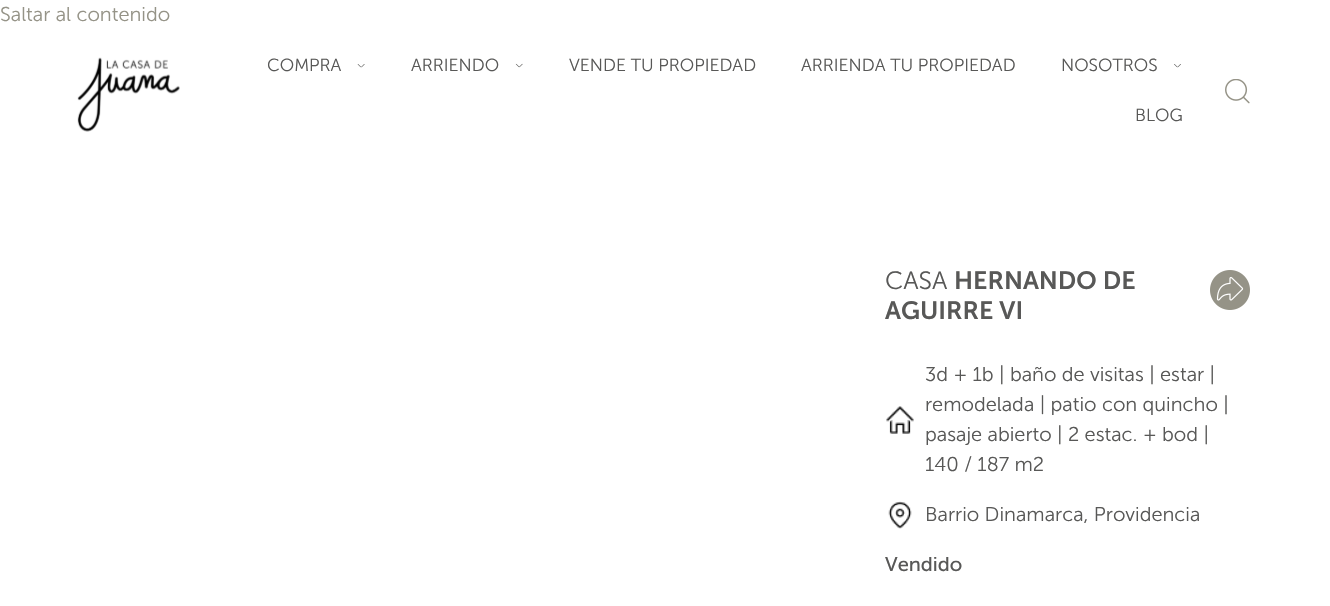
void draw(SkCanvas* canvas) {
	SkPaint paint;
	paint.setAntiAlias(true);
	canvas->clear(0xffffffff);
	SkFont f1(fontMgr->matchFamilyStyle("Museo Sans", SkFontStyle(300, SkFontStyle::kNormal_Width, SkFontStyle::kUpright_Slant)), 20);
	f1.setSubpixel(true);
	paint.setColor(0xff959387);
	canvas->drawString("Saltar al contenido", 0, 21, f1, paint);
	canvas->drawImageRect(SkImages::DeferredFromEncodedData(SkData::MakeFromFileName("img1.png")), SkRect::MakeXYWH(77, 57, 103, 75), SkSamplingOptions());
	SkFont f2(fontMgr->matchFamilyStyle("Museo Sans", SkFontStyle(300, SkFontStyle::kNormal_Width, SkFontStyle::kUpright_Slant)), 17.5);
	f2.setSubpixel(true);
	paint.setColor(0xff585857);
	canvas->drawString("COMPRA", 267, 71, f2, paint);
	canvas->drawImageRect(SkImages::DeferredFromEncodedData(SkData::MakeFromFileName("img2.png")), SkRect::MakeXYWH(357, 64, 8, 4), SkSamplingOptions());
	canvas->drawString("ARRIENDO", 411, 71, f2, paint);
	canvas->drawImageRect(SkImages::DeferredFromEncodedData(SkData::MakeFromFileName("img3.png")), SkRect::MakeXYWH(515, 63, 8, 5), SkSamplingOptions());
	canvas->drawString("VENDE TU PROPIEDAD", 569, 71, f2, paint);
	canvas->drawString("ARRIENDA TU PROPIEDAD", 801, 71, f2, paint);
	canvas->drawString("NOSOTROS", 1061, 71, f2, paint);
	canvas->drawImageRect(SkImages::DeferredFromEncodedData(SkData::MakeFromFileName("img4.png")), SkRect::MakeXYWH(1174, 64, 7, 4), SkSamplingOptions());
	canvas->drawString("BLOG", 1135, 121, f2, paint);
	canvas->drawImageRect(SkImages::DeferredFromEncodedData(SkData::MakeFromFileName("img5.png")), SkRect::MakeXYWH(1225, 79, 25, 25), SkSamplingOptions());
	SkFont f3(fontMgr->matchFamilyStyle("Museo Sans", SkFontStyle(300, SkFontStyle::kNormal_Width, SkFontStyle::kUpright_Slant)), 25);
	f3.setSubpixel(true);
	canvas->drawString("CASA", 885, 289, f3, paint);
	SkFont f4(fontMgr->matchFamilyStyle("Museo Sans", SkFontStyle(600, SkFontStyle::kNormal_Width, SkFontStyle::kUpright_Slant)), 25);
	f4.setSubpixel(true);
	canvas->drawString("HERNANDO DE", 954, 289, f4, paint);
	canvas->drawString("AGUIRRE VI", 885, 319, f4, paint);
	canvas->drawImageRect(SkImages::DeferredFromEncodedData(SkData::MakeFromFileName("img6.png")), SkRect::MakeXYWH(1210, 270, 40, 40), SkSamplingOptions());
	canvas->drawImageRect(SkImages::DeferredFromEncodedData(SkData::MakeFromFileName("img7.png")), SkRect::MakeXYWH(886, 406, 28, 28), SkSamplingOptions());
	canvas->drawString("3d + 1b | baño de visitas | estar |", 925, 381, f1, paint);
	canvas->drawString("remodelada | patio con quincho |", 925, 411, f1, paint);
	canvas->drawString("pasaje abierto | 2 estac. + bod |", 925, 441, f1, paint);
	canvas->drawString("140 / 187 m2", 925, 471, f1, paint);
	canvas->drawImageRect(SkImages::DeferredFromEncodedData(SkData::MakeFromFileName("img8.png")), SkRect::MakeXYWH(888, 501, 24, 28), SkSamplingOptions());
	canvas->drawString("Barrio Dinamarca, Providencia", 925, 521, f1, paint);
	SkFont f5(fontMgr->matchFamilyStyle("Museo Sans", SkFontStyle::Normal()), 20);
	f5.setSubpixel(true);
	canvas->drawString("Vendido", 885, 571, f5, paint);
}
